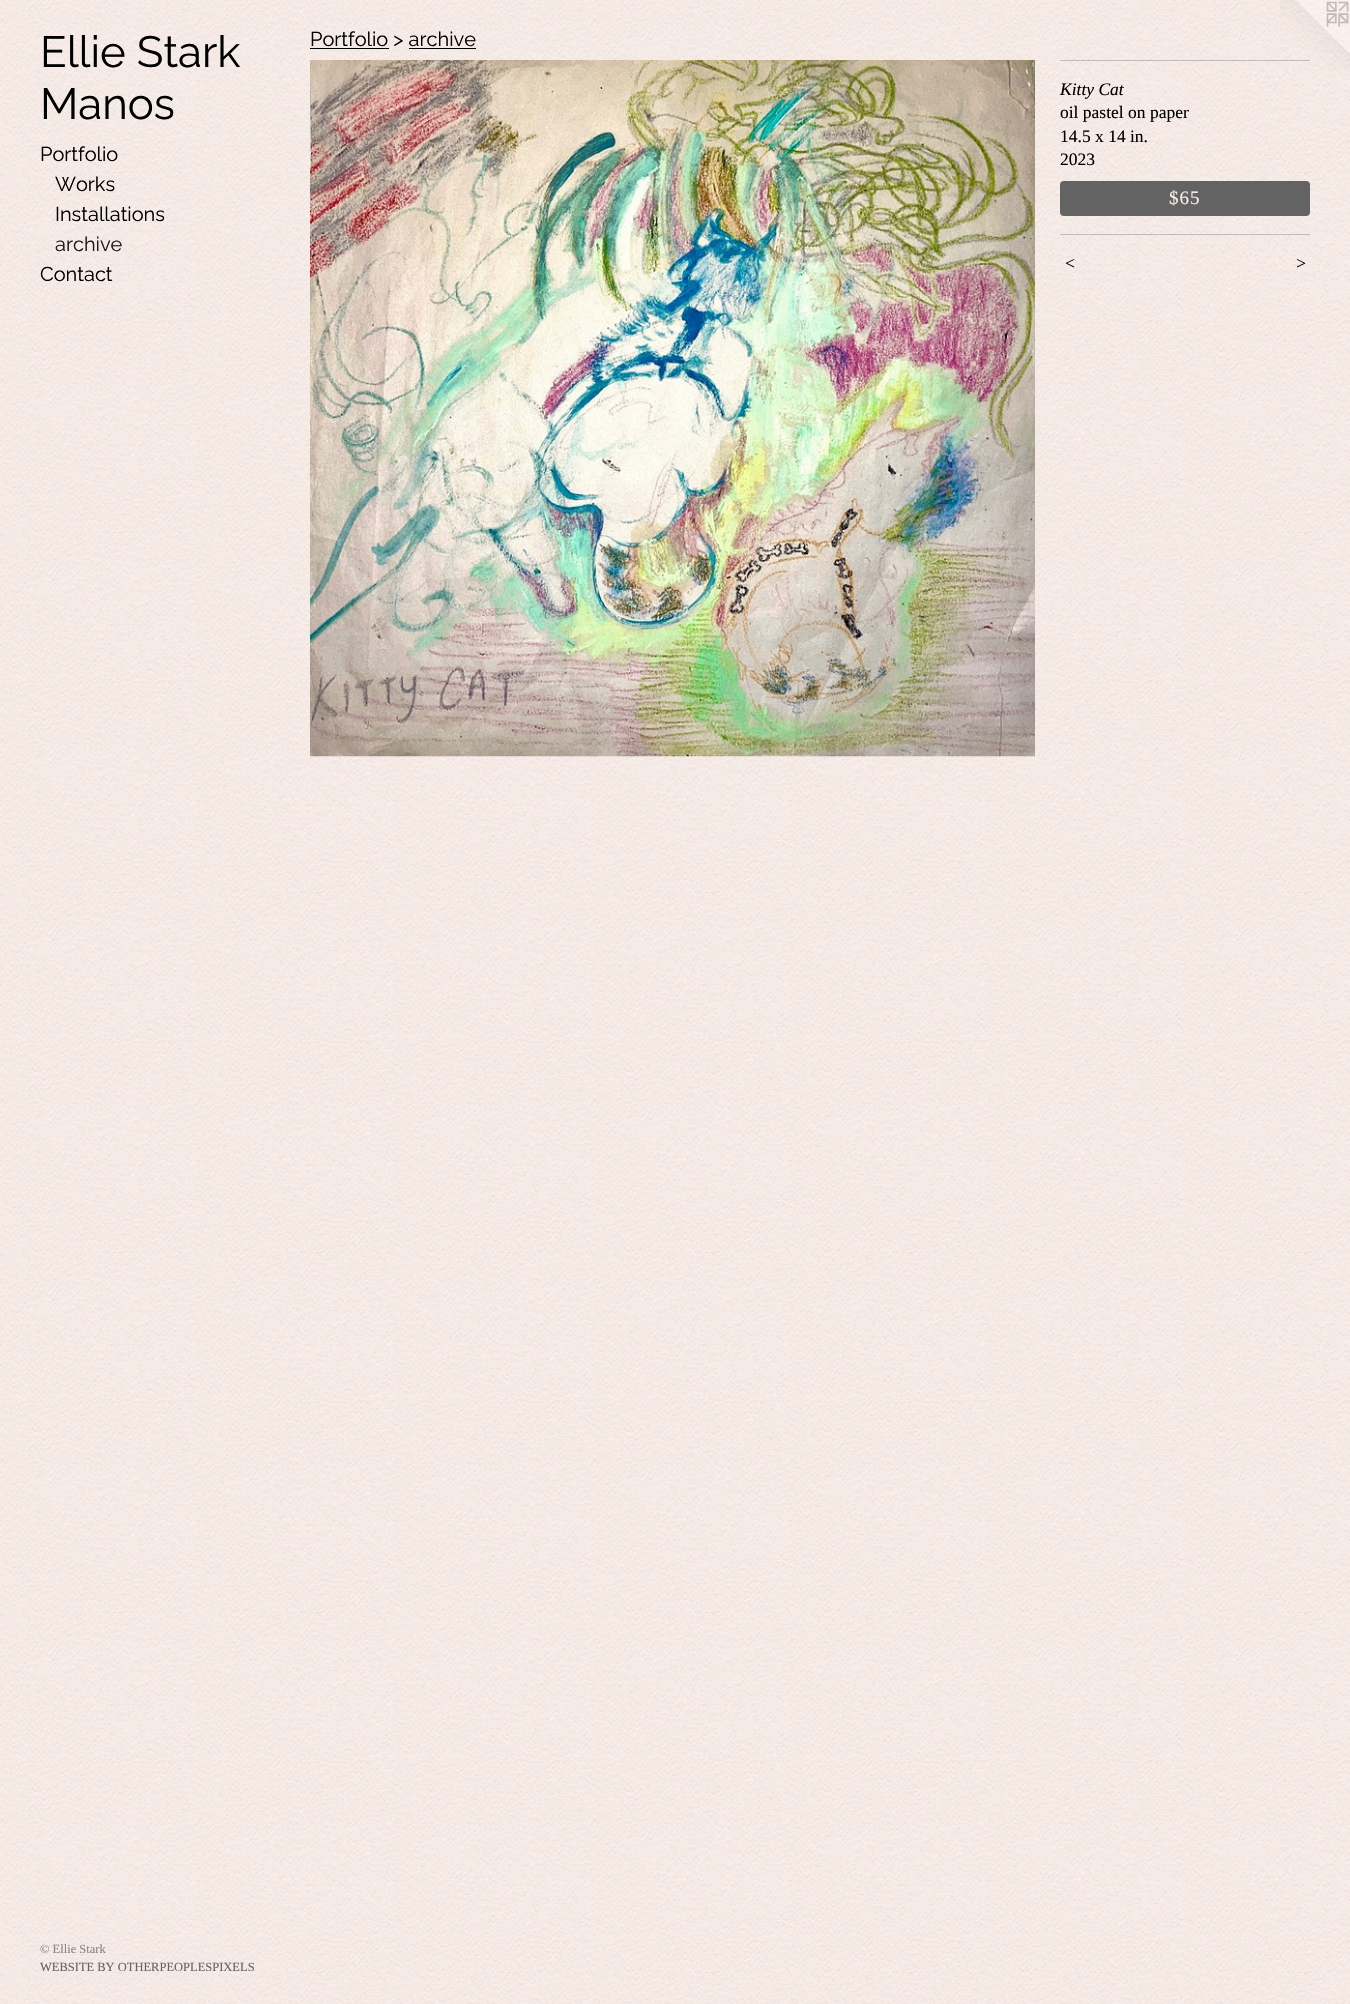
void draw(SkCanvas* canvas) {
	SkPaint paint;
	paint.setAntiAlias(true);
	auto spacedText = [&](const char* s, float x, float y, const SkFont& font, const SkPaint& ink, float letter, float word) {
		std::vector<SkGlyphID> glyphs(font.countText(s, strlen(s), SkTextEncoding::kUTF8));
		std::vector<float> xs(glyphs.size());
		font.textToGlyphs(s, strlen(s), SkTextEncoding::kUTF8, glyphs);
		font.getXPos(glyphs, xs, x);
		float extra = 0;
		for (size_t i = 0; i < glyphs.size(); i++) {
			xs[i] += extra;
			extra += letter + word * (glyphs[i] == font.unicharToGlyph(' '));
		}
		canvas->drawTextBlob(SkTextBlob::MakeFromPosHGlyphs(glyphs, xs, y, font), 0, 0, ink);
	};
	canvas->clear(0xffffffff);
	canvas->drawImageRect(SkImages::DeferredFromEncodedData(SkData::MakeFromFileName("img1.png")), SkRect::MakeXYWH(0, 0, 1350, 2004), SkSamplingOptions());
	SkFont f1(fontMgr->matchFamilyStyle("Raleway", SkFontStyle(100, SkFontStyle::kNormal_Width, SkFontStyle::kUpright_Slant)), 43.75);
	f1.setSubpixel(true);
	paint.setColor(0xff000000);
	canvas->drawString("Ellie Stark", 40, 67, f1, paint);
	canvas->drawString("Manos", 40, 119, f1, paint);
	SkFont f2(fontMgr->matchFamilyStyle("Raleway", SkFontStyle(100, SkFontStyle::kNormal_Width, SkFontStyle::kUpright_Slant)), 20);
	f2.setSubpixel(true);
	canvas->drawString("Portfolio", 40, 161, f2, paint);
	canvas->drawString("Works", 55, 191, f2, paint);
	canvas->drawString("Installations", 55, 221, f2, paint);
	paint.setColor(0xff1a1a1a);
	canvas->drawString("archive", 55, 251, f2, paint);
	paint.setColor(0xff000000);
	canvas->drawString("Contact", 40, 281, f2, paint);
	SkFont f3(fontMgr->matchFamilyStyle("Liberation Serif", SkFontStyle::Normal()), 12.5);
	f3.setSubpixel(true);
	paint.setColor(0xff858585);
	canvas->drawString("© Ellie Stark", 40, 1953, f3, paint);
	paint.setColor(0xff636363);
	canvas->drawString("WEBSITE BY OTHERPEOPLESPIXELS", 40, 1971, f3, paint);
	paint.setColor(0xff000000);
	canvas->drawString("Portfolio > archive", 310, 46, f2, paint);
	canvas->drawRect(SkRect::MakeXYWH(310, 48, 79, 1), paint);
	canvas->drawRect(SkRect::MakeXYWH(409, 48, 67, 1), paint);
	canvas->drawImageRect(SkImages::DeferredFromEncodedData(SkData::MakeFromFileName("img2.png")), SkRect::MakeXYWH(310, 60, 725, 697), SkSamplingOptions());
	canvas->drawImageRect(SkImages::DeferredFromEncodedData(SkData::MakeFromFileName("img3.png")), SkRect::MakeXYWH(1280, 0, 70, 70), SkSamplingOptions());
	paint.setColor(0x33000000);
	canvas->drawRect(SkRect::MakeXYWH(1060, 60, 250, 1), paint);
	SkFont f4(fontMgr->matchFamilyStyle("Liberation Serif", SkFontStyle::Italic()), 17.5);
	f4.setSubpixel(true);
	paint.setColor(0xff000000);
	canvas->drawString("Kitty Cat", 1060, 95, f4, paint);
	SkFont f5(fontMgr->matchFamilyStyle("Liberation Serif", SkFontStyle::Normal()), 17.5);
	f5.setSubpixel(true);
	canvas->drawString("oil pastel on paper", 1060, 118, f5, paint);
	canvas->drawString("14.5 x 14 in.", 1060, 142, f5, paint);
	canvas->drawString("2023", 1060, 165, f5, paint);
	paint.setColor(0xff636363);
	canvas->drawRoundRect(SkRect::MakeXYWH(1060, 181, 250, 35), 4, 4, paint);
	SkFont f6(fontMgr->matchFamilyStyle("Liberation Serif", SkFontStyle::Normal()), 19);
	f6.setSubpixel(true);
	paint.setColor(0xfff5ebe7);
	spacedText("$65", 1169, 204, f6, paint, 1, 0);
	paint.setColor(0x33000000);
	canvas->drawRect(SkRect::MakeXYWH(1060, 234, 250, 1), paint);
	paint.setColor(0xff000000);
	spacedText("<", 1064, 269, f4, paint, 1, 0);
	spacedText(">", 1295, 269, f4, paint, 1, 0);
}
